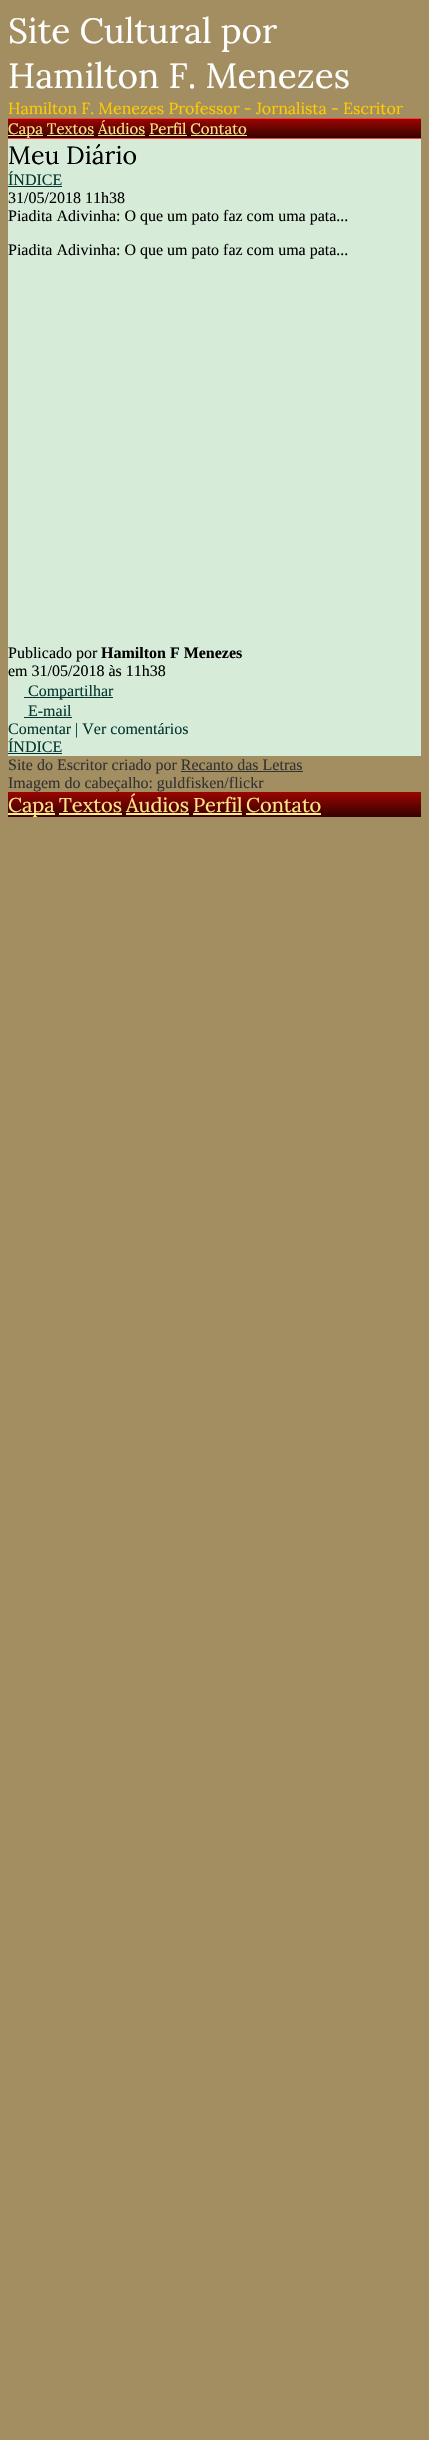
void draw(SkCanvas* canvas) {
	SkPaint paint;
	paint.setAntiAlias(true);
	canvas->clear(0xffa28e60);
	SkFont f1(fontMgr->matchFamilyStyle("Lora", SkFontStyle::Normal()), 35);
	f1.setSubpixel(true);
	paint.setColor(0xffffffff);
	canvas->drawString("Site Cultural por", 8, 43, f1, paint);
	canvas->drawString("Hamilton F. Menezes", 8, 88, f1, paint);
	SkFont f2(fontMgr->matchFamilyStyle("Lora", SkFontStyle::Normal()), 16);
	f2.setSubpixel(true);
	paint.setColor(0xffffcc00);
	canvas->drawString("Hamilton F. Menezes Professor - Jornalista - Escritor", 8, 114, f2, paint);
	{
		const SkColor colors[] = {0xff9b0500, 0xff350200};
		const float stops[] = {0, 1};
		const SkPoint ends[] = {{215, 119}, {215, 138}};
		paint.setShader(SkGradientShader::MakeLinear(ends, colors, stops, 2, SkTileMode::kClamp));
		paint.setAlpha(255);
	}
	canvas->drawRect(SkRect::MakeXYWH(8, 119, 413, 19), paint);
	paint.setShader(nullptr);
	paint.setColor(0xffff3c35);
	canvas->drawRect(SkRect::MakeXYWH(8, 118, 413, 1), paint);
	paint.setColor(0xffffe88a);
	canvas->drawRect(SkRect::MakeXYWH(8, 135, 35, 1), paint);
	SkFont f3(fontMgr->matchFamilyStyle("Lora", SkFontStyle::Normal()), 15);
	f3.setSubpixel(true);
	canvas->drawString("Capa Textos Áudios Perfil Contato", 8, 134, f3, paint);
	canvas->drawRect(SkRect::MakeXYWH(47, 135, 47, 1), paint);
	canvas->drawRect(SkRect::MakeXYWH(98, 135, 47, 1), paint);
	canvas->drawRect(SkRect::MakeXYWH(149, 135, 38, 1), paint);
	canvas->drawRect(SkRect::MakeXYWH(191, 135, 56, 1), paint);
	paint.setColor(0xffff3c35);
	canvas->drawRect(SkRect::MakeXYWH(8, 138, 413, 1), paint);
	paint.setColor(0xffd6ecd9);
	canvas->drawRect(SkRect::MakeXYWH(8, 139, 413, 617), paint);
	SkFont f4(fontMgr->matchFamilyStyle("Lora", SkFontStyle::Normal()), 25);
	f4.setSubpixel(true);
	paint.setColor(0xff000000);
	canvas->drawString("Meu Diário", 8, 164, f4, paint);
	SkFont f5(fontMgr->matchFamilyStyle("Liberation Serif", SkFontStyle::Normal()), 16);
	f5.setSubpixel(true);
	paint.setColor(0xff043631);
	canvas->drawString("ÍNDICE", 8, 185, f5, paint);
	canvas->drawRect(SkRect::MakeXYWH(8, 186, 54, 1), paint);
	paint.setColor(0xff000000);
	canvas->drawString("31/05/2018 11h38", 8, 203, f5, paint);
	canvas->drawString("Piadita Adivinha: O que um pato faz com uma pata...", 8, 221, f5, paint);
	canvas->drawString("Piadita Adivinha: O que um pato faz com uma pata...", 8, 255, f5, paint);
	canvas->drawString("Publicado por", 8, 658, f5, paint);
	SkFont f6(fontMgr->matchFamilyStyle("Liberation Serif", SkFontStyle::Bold()), 16);
	f6.setSubpixel(true);
	canvas->drawString("Hamilton F Menezes", 101, 658, f6, paint);
	canvas->drawString("em 31/05/2018 às 11h38", 8, 676, f5, paint);
	paint.setColor(0xff043631);
	canvas->drawRect(SkRect::MakeXYWH(24, 697, 89, 1), paint);
	canvas->drawString("Compartilhar", 28, 696, f5, paint);
	canvas->drawString("E-mail", 28, 716, f5, paint);
	canvas->drawRect(SkRect::MakeXYWH(24, 717, 48, 1), paint);
	canvas->drawString("Comentar | Ver comentários", 8, 734, f5, paint);
	canvas->drawString("ÍNDICE", 8, 752, f5, paint);
	canvas->drawRect(SkRect::MakeXYWH(8, 753, 54, 1), paint);
	paint.setColor(0xff333333);
	canvas->drawString("Site do Escritor criado por Recanto das Letras", 8, 770, f5, paint);
	canvas->drawRect(SkRect::MakeXYWH(181, 771, 122, 1), paint);
	canvas->drawString("Imagem do cabeçalho: guldfisken/flickr", 8, 788, f5, paint);
	{
		const SkColor colors[] = {0xff9b0500, 0xff350200};
		const float stops[] = {0, 1};
		const SkPoint ends[] = {{215, 792}, {215, 817}};
		paint.setShader(SkGradientShader::MakeLinear(ends, colors, stops, 2, SkTileMode::kClamp));
		paint.setAlpha(255);
	}
	canvas->drawRect(SkRect::MakeXYWH(8, 792, 413, 25), paint);
	paint.setShader(nullptr);
	paint.setColor(0xffffe88a);
	canvas->drawRect(SkRect::MakeXYWH(8, 813, 47, 2), paint);
	SkFont f7(fontMgr->matchFamilyStyle("Lora", SkFontStyle::Normal()), 20);
	f7.setSubpixel(true);
	canvas->drawString("Capa", 8, 812, f7, paint);
	canvas->drawString("Textos", 59, 812, f7, paint);
	canvas->drawRect(SkRect::MakeXYWH(59, 813, 63, 2), paint);
	canvas->drawString("Áudios", 126, 812, f7, paint);
	canvas->drawRect(SkRect::MakeXYWH(126, 813, 63, 2), paint);
	canvas->drawString("Perfil", 193, 812, f7, paint);
	canvas->drawRect(SkRect::MakeXYWH(193, 813, 49, 2), paint);
	canvas->drawString("Contato", 246, 812, f7, paint);
	canvas->drawRect(SkRect::MakeXYWH(246, 813, 75, 2), paint);
}
